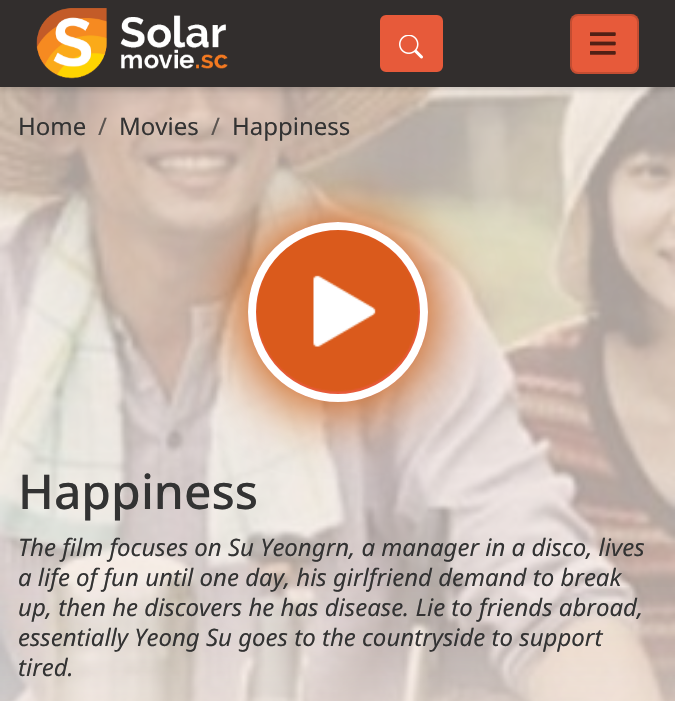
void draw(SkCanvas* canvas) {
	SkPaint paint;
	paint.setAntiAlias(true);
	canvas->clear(0xffffffff);
	canvas->drawImageRect(SkImages::DeferredFromEncodedData(SkData::MakeFromFileName("img4.png")), SkRect::MakeXYWH(0, 87, 675, 614), SkSamplingOptions());
	paint.setColor(0x26000000);
	paint.setMaskFilter(SkMaskFilter::MakeBlur(kNormal_SkBlurStyle, 3));
	canvas->drawRect(SkRect::MakeXYWH(0, 3, 675, 87), paint);
	paint.setMaskFilter(nullptr);
	paint.setColor(0xff322e2d);
	canvas->drawRect(SkRect::MakeXYWH(0, 0, 675, 87), paint);
	canvas->drawImageRect(SkImages::DeferredFromEncodedData(SkData::MakeFromFileName("img1.png")), SkRect::MakeXYWH(36, 8, 192, 71), SkSamplingOptions());
	paint.setColor(0xffe75a3a);
	canvas->drawRoundRect(SkRect::MakeXYWH(381, 16, 61, 55), 5, 5, paint);
	paint.setStroke(true);
	paint.setStrokeWidth(2);
	canvas->drawRoundRect(SkRect::MakeXYWH(381, 16, 61, 55), 5, 5, paint);
	canvas->drawImageRect(SkImages::DeferredFromEncodedData(SkData::MakeFromFileName("img2.png")), SkRect::MakeXYWH(399, 35, 24, 24), SkSamplingOptions());
	paint.setStroke(false);
	canvas->drawRoundRect(SkRect::MakeXYWH(570, 14, 69, 60), 8, 8, paint);
	paint.setStroke(true);
	paint.setColor(0x26000000);
	canvas->drawRoundRect(SkRect::MakeXYWH(571, 15, 67, 58), 7, 7, paint);
	canvas->drawImageRect(SkImages::DeferredFromEncodedData(SkData::MakeFromFileName("img3.png")), SkRect::MakeXYWH(590, 32, 26, 23), SkSamplingOptions());
	canvas->drawImageRect(SkImages::DeferredFromEncodedData(SkData::MakeFromFileName("img5.png")), SkRect::MakeXYWH(0, 587, 675, 114), SkSamplingOptions());
	SkFont f1(fontMgr->matchFamilyStyle("Noto Sans", SkFontStyle::Normal()), 24);
	f1.setSubpixel(true);
	paint.setStroke(false);
	paint.setColor(0xff333333);
	canvas->drawString("Home", 18, 135, f1, paint);
	paint.setColor(0xff5b5551);
	canvas->drawString("/", 98, 135, f1, paint);
	paint.setColor(0xff333333);
	canvas->drawString("Movies", 119, 135, f1, paint);
	paint.setColor(0xff5b5551);
	canvas->drawString("/", 211, 135, f1, paint);
	paint.setColor(0xff333333);
	canvas->drawString("Happiness", 232, 135, f1, paint);
	paint.setColor(0xffc95100);
	paint.setMaskFilter(SkMaskFilter::MakeBlur(kNormal_SkBlurStyle, 30));
	canvas->drawRoundRect(SkRect::MakeXYWH(240, 215, 195, 195), 97.5, 97.5, paint);
	paint.setMaskFilter(nullptr);
	paint.setColor(0xffe75a3a);
	canvas->drawCircle(338, 312, 90, paint);
	canvas->drawImageRect(SkImages::DeferredFromEncodedData(SkData::MakeFromFileName("img6.png")), SkRect::MakeXYWH(256, 230, 163, 162), SkSamplingOptions());
	paint.setStroke(true);
	paint.setStrokeWidth(8);
	paint.setColor(0xffffffff);
	canvas->drawCircle(338, 312, 86, paint);
	SkFont f2(fontMgr->matchFamilyStyle("Noto Sans", SkFontStyle(500, SkFontStyle::kNormal_Width, SkFontStyle::kUpright_Slant)), 48);
	f2.setSubpixel(true);
	paint.setStroke(false);
	paint.setColor(0xff333333);
	canvas->drawString("Happiness", 18, 509, f2, paint);
	SkFont f3(fontMgr->matchFamilyStyle("Noto Sans", SkFontStyle::Italic()), 24);
	f3.setSubpixel(true);
	canvas->drawString("The film focuses on Su Yeongrn, a manager in a disco, lives", 18, 556, f3, paint);
	canvas->drawString("a life of fun until one day, his girlfriend demand to break", 18, 586, f3, paint);
	canvas->drawString("up, then he discovers he has disease. Lie to friends abroad,", 18, 616, f3, paint);
	canvas->drawString("essentially Yeong Su goes to the countryside to support", 18, 646, f3, paint);
	canvas->drawString("tired.", 18, 676, f3, paint);
}
